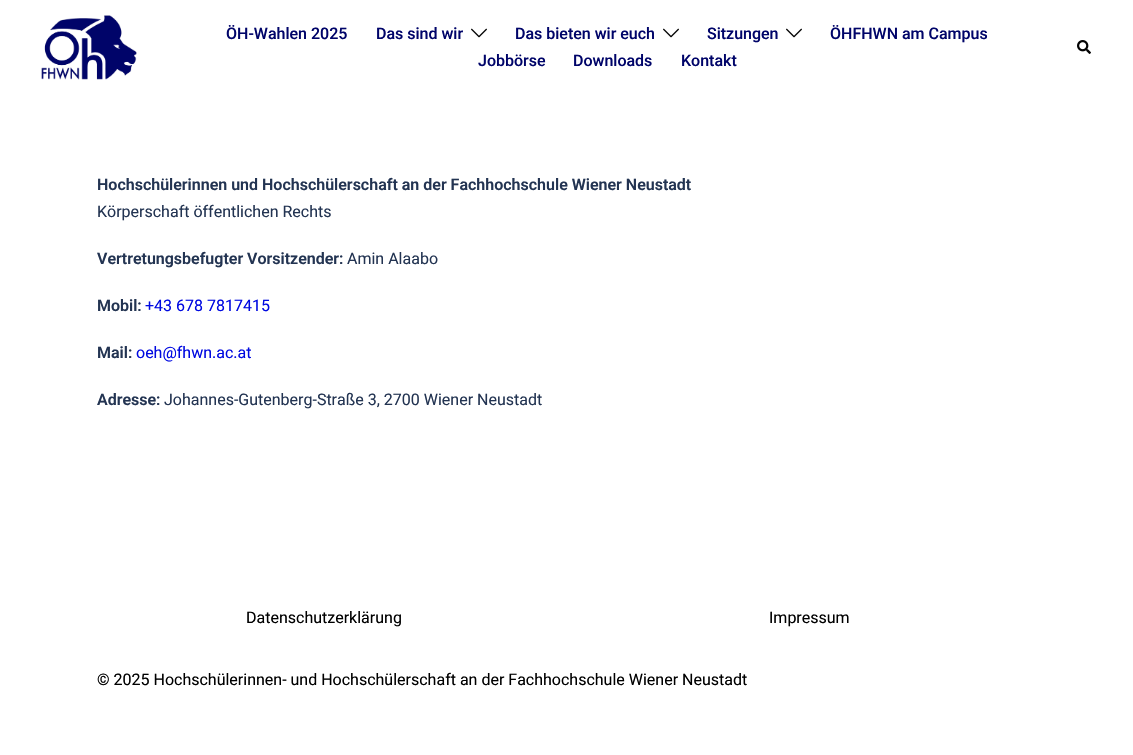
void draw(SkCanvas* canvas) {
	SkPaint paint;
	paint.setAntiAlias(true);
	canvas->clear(0xffffffff);
	canvas->drawImageRect(SkImages::DeferredFromEncodedData(SkData::MakeFromFileName("img1.png")), SkRect::MakeXYWH(41, 15, 96, 65), SkSamplingOptions());
	SkFont f1(fontMgr->matchFamilyStyle("Roboto", SkFontStyle(500, SkFontStyle::kNormal_Width, SkFontStyle::kUpright_Slant)), 16);
	f1.setSubpixel(true);
	paint.setColor(0xff000469);
	canvas->drawString("ÖH-Wahlen 2025", 226, 39, f1, paint);
	canvas->drawString("Das sind wir", 376, 39, f1, paint);
	canvas->drawImageRect(SkImages::DeferredFromEncodedData(SkData::MakeFromFileName("img2.png")), SkRect::MakeXYWH(471, 28, 16, 10), SkSamplingOptions());
	canvas->drawString("Das bieten wir euch", 515, 39, f1, paint);
	canvas->drawImageRect(SkImages::DeferredFromEncodedData(SkData::MakeFromFileName("img2.png")), SkRect::MakeXYWH(663, 28, 16, 10), SkSamplingOptions());
	canvas->drawString("Sitzungen", 707, 39, f1, paint);
	canvas->drawImageRect(SkImages::DeferredFromEncodedData(SkData::MakeFromFileName("img2.png")), SkRect::MakeXYWH(786, 28, 16, 10), SkSamplingOptions());
	canvas->drawString("ÖHFHWN am Campus", 830, 39, f1, paint);
	canvas->drawString("Jobbörse", 478, 66, f1, paint);
	canvas->drawString("Downloads", 573, 66, f1, paint);
	canvas->drawString("Kontakt", 681, 66, f1, paint);
	canvas->drawImageRect(SkImages::DeferredFromEncodedData(SkData::MakeFromFileName("img3.png")), SkRect::MakeXYWH(1077, 40, 14, 14), SkSamplingOptions());
	SkFont f2(fontMgr->matchFamilyStyle("Roboto", SkFontStyle(600, SkFontStyle::kNormal_Width, SkFontStyle::kUpright_Slant)), 16);
	f2.setSubpixel(true);
	paint.setColor(0xff233452);
	canvas->drawString("Hochschülerinnen und Hochschülerschaft an der Fachhochschule Wiener Neustadt", 97, 190, f2, paint);
	SkFont f3(fontMgr->matchFamilyStyle("Roboto", SkFontStyle::Normal()), 16);
	f3.setSubpixel(true);
	canvas->drawString("Körperschaft öffentlichen Rechts", 97, 217, f3, paint);
	canvas->drawString("Vertretungsbefugter Vorsitzender:", 97, 264, f2, paint);
	canvas->drawString("Amin Alaabo", 347, 264, f3, paint);
	canvas->drawString("Mobil:", 97, 311, f2, paint);
	paint.setColor(0xff0009e1);
	canvas->drawString("+43 678 7817415", 145, 311, f3, paint);
	paint.setColor(0xff233452);
	canvas->drawString("Mail:", 97, 358, f2, paint);
	paint.setColor(0xff0009e1);
	canvas->drawString("oeh@fhwn.ac.at", 136, 358, f3, paint);
	paint.setColor(0xff233452);
	canvas->drawString("Adresse:", 97, 405, f2, paint);
	canvas->drawString("Johannes-Gutenberg-Straße 3, 2700 Wiener Neustadt", 164, 405, f3, paint);
	paint.setColor(0xff000000);
	canvas->drawString("Datenschutzerklärung", 246, 623, f3, paint);
	canvas->drawString("Impressum", 769, 623, f3, paint);
	canvas->drawString("© 2025 Hochschülerinnen- und Hochschülerschaft an der Fachhochschule Wiener Neustadt", 97, 685, f3, paint);
}
